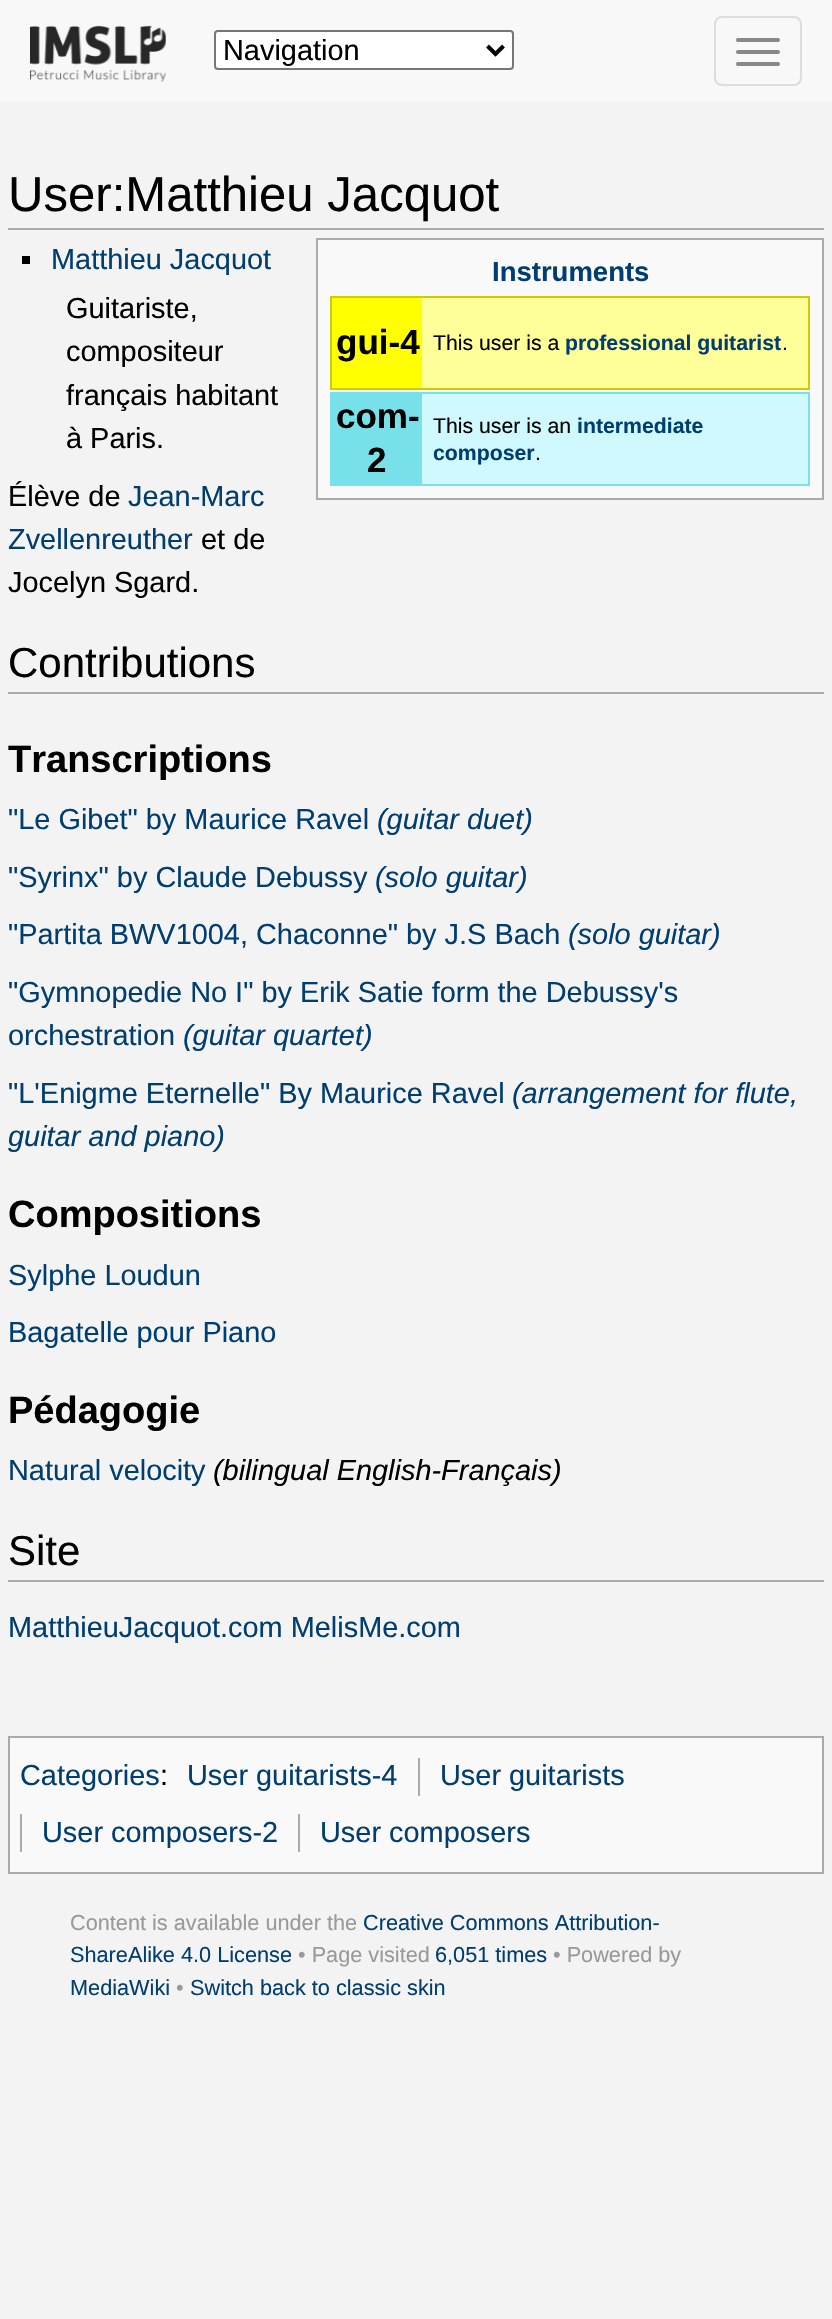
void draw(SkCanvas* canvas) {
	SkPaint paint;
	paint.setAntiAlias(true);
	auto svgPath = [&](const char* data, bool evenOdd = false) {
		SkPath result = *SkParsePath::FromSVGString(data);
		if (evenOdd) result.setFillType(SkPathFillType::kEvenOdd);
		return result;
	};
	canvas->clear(0xfff3f3f3);
	paint.setColor(0xfff8f8f8);
	canvas->drawRect(SkRect::MakeXYWH(0, 0, 832, 102), paint);
	canvas->drawImageRect(SkImages::DeferredFromEncodedData(SkData::MakeFromFileName("img1.png")), SkRect::MakeXYWH(30, 25, 136, 57), SkSamplingOptions());
	paint.setColor(0xffffffff);
	canvas->drawRoundRect(SkRect::MakeXYWH(215, 31, 298, 38), 3, 3, paint);
	paint.setStroke(true);
	paint.setStrokeWidth(2);
	paint.setColor(0xff767676);
	canvas->drawRoundRect(SkRect::MakeXYWH(215, 31, 298, 38), 3, 3, paint);
	paint.setStrokeWidth(4);
	paint.setColor(0xff000000);
	canvas->drawPath(svgPath("M487.5 46L495.5 54L503.5 46"), paint);
	SkFont f1(fontMgr->matchFamilyStyle("Liberation Sans", SkFontStyle::Normal()), 28.9);
	f1.setSubpixel(true);
	paint.setStroke(false);
	canvas->drawString("Navigation", 223, 60, f1, paint);
	paint.setStroke(true);
	paint.setStrokeWidth(2);
	paint.setColor(0xffdddddd);
	canvas->drawRoundRect(SkRect::MakeXYWH(715, 17, 86, 68), 7, 7, paint);
	paint.setStroke(false);
	paint.setColor(0xff888888);
	canvas->drawRoundRect(SkRect::MakeXYWH(736, 38, 44, 4), 2, 2, paint);
	canvas->drawRoundRect(SkRect::MakeXYWH(736, 50, 44, 4), 2, 2, paint);
	canvas->drawRoundRect(SkRect::MakeXYWH(736, 62, 44, 4), 2, 2, paint);
	paint.setColor(0xffaaaaaa);
	canvas->drawRect(SkRect::MakeXYWH(8, 228, 816, 2), paint);
	SkFont f2(fontMgr->matchFamilyStyle("Liberation Sans", SkFontStyle::Normal()), 49.1);
	f2.setSubpixel(true);
	paint.setColor(0xff000000);
	canvas->drawString("User:Matthieu Jacquot", 8, 211, f2, paint);
	canvas->drawRect(SkRect::MakeXYWH(22, 256, 8, 8), paint);
	paint.setColor(0xff003d70);
	canvas->drawString("Matthieu Jacquot", 51, 269, f1, paint);
	paint.setColor(0xfff9f9f9);
	canvas->drawRect(SkRect::MakeXYWH(317, 239, 506, 260), paint);
	paint.setStroke(true);
	paint.setColor(0xffaaaaaa);
	canvas->drawRect(SkRect::MakeXYWH(317, 239, 506, 260), paint);
	SkFont f3(fontMgr->matchFamilyStyle("Liberation Sans", SkFontStyle::Bold()), 27.5);
	f3.setSubpixel(true);
	paint.setStroke(false);
	paint.setColor(0xff003d70);
	canvas->drawString("Instruments", 492, 281, f3, paint);
	paint.setStroke(true);
	paint.setColor(0xffcccc00);
	canvas->drawRect(SkRect::MakeXYWH(331, 297, 478, 92), paint);
	paint.setStroke(false);
	paint.setColor(0xffffff99);
	canvas->drawRect(SkRect::MakeXYWH(422, 298, 386, 90), paint);
	paint.setColor(0xffffff00);
	canvas->drawRect(SkRect::MakeXYWH(332, 298, 90, 90), paint);
	SkFont f4(fontMgr->matchFamilyStyle("Liberation Sans", SkFontStyle::Bold()), 35);
	f4.setSubpixel(true);
	paint.setColor(0xff000000);
	canvas->drawString("gui-4", 336, 354, f4, paint);
	SkFont f5(fontMgr->matchFamilyStyle("Liberation Sans", SkFontStyle::Normal()), 21.25);
	f5.setSubpixel(true);
	canvas->drawString("This user is a", 433, 350, f5, paint);
	SkFont f6(fontMgr->matchFamilyStyle("Liberation Sans", SkFontStyle::Bold()), 21.25);
	f6.setSubpixel(true);
	paint.setColor(0xff003d70);
	canvas->drawString("professional guitarist", 565, 350, f6, paint);
	paint.setColor(0xff000000);
	canvas->drawString(".", 782, 350, f5, paint);
	paint.setStroke(true);
	paint.setColor(0xff77e0e8);
	canvas->drawRect(SkRect::MakeXYWH(331, 393, 478, 92), paint);
	paint.setStroke(false);
	paint.setColor(0xffd0f8ff);
	canvas->drawRect(SkRect::MakeXYWH(422, 394, 386, 90), paint);
	paint.setColor(0xff77e0e8);
	canvas->drawRect(SkRect::MakeXYWH(332, 394, 90, 90), paint);
	paint.setColor(0xff000000);
	canvas->drawString("com-", 336, 428, f4, paint);
	canvas->drawString("2", 367, 472, f4, paint);
	canvas->drawString("This user is an", 433, 433, f5, paint);
	paint.setColor(0xff003d70);
	canvas->drawString("intermediate", 577, 433, f6, paint);
	canvas->drawString("composer", 433, 460, f6, paint);
	paint.setColor(0xff000000);
	canvas->drawString(".", 535, 460, f5, paint);
	canvas->drawString("Guitariste,", 66, 318, f1, paint);
	canvas->drawString("compositeur", 66, 361, f1, paint);
	canvas->drawString("français habitant", 66, 405, f1, paint);
	canvas->drawString("à Paris.", 66, 448, f1, paint);
	canvas->drawString("Élève de", 8, 506, f1, paint);
	paint.setColor(0xff003d70);
	canvas->drawString("Jean-Marc", 128, 506, f1, paint);
	canvas->drawString("Zvellenreuther", 8, 549, f1, paint);
	paint.setColor(0xff000000);
	canvas->drawString("et de", 201, 549, f1, paint);
	canvas->drawString("Jocelyn Sgard.", 8, 592, f1, paint);
	paint.setColor(0xffaaaaaa);
	canvas->drawRect(SkRect::MakeXYWH(8, 692, 816, 2), paint);
	SkFont f7(fontMgr->matchFamilyStyle("Liberation Sans", SkFontStyle::Normal()), 42);
	f7.setSubpixel(true);
	paint.setColor(0xff000000);
	canvas->drawString("Contributions", 8, 677, f7, paint);
	SkFont f8(fontMgr->matchFamilyStyle("Liberation Sans", SkFontStyle::Bold()), 38);
	f8.setSubpixel(true);
	canvas->drawString("Transcriptions", 8, 772, f8, paint);
	paint.setColor(0xff003d70);
	canvas->drawString("\"Le Gibet\" by Maurice Ravel", 8, 829, f1, paint);
	SkFont f9(fontMgr->matchFamilyStyle("Liberation Sans", SkFontStyle::Italic()), 28.9);
	f9.setSubpixel(true);
	canvas->drawString("(guitar duet)", 377, 829, f9, paint);
	canvas->drawString("\"Syrinx\" by Claude Debussy", 8, 887, f1, paint);
	canvas->drawString("(solo guitar)", 375, 887, f9, paint);
	canvas->drawString("\"Partita BWV1004, Chaconne\" by J.S Bach", 8, 944, f1, paint);
	canvas->drawString("(solo guitar)", 568, 944, f9, paint);
	canvas->drawString("\"Gymnopedie No I\" by Erik Satie form the Debussy's", 8, 1002, f1, paint);
	canvas->drawString("orchestration", 8, 1045, f1, paint);
	canvas->drawString("(guitar quartet)", 183, 1045, f9, paint);
	canvas->drawString("\"L'Enigme Eternelle\" By Maurice Ravel", 8, 1103, f1, paint);
	canvas->drawString("(arrangement for flute,", 512, 1103, f9, paint);
	canvas->drawString("guitar and piano)", 8, 1146, f9, paint);
	paint.setColor(0xff000000);
	canvas->drawString("Compositions", 8, 1227, f8, paint);
	paint.setColor(0xff003d70);
	canvas->drawString("Sylphe Loudun", 8, 1285, f1, paint);
	canvas->drawString("Bagatelle pour Piano", 8, 1342, f1, paint);
	paint.setColor(0xff000000);
	canvas->drawString("Pédagogie", 8, 1423, f8, paint);
	paint.setColor(0xff003d70);
	canvas->drawString("Natural velocity", 8, 1480, f1, paint);
	paint.setColor(0xff000000);
	canvas->drawString("(bilingual English-Français)", 213, 1480, f9, paint);
	paint.setColor(0xffaaaaaa);
	canvas->drawRect(SkRect::MakeXYWH(8, 1580, 816, 2), paint);
	paint.setColor(0xff000000);
	canvas->drawString("Site", 8, 1565, f7, paint);
	paint.setColor(0xff003d70);
	canvas->drawString("MatthieuJacquot.com MelisMe.com", 8, 1637, f1, paint);
	paint.setColor(0xfff9f9f9);
	canvas->drawRect(SkRect::MakeXYWH(9, 1737, 814, 136), paint);
	paint.setStroke(true);
	paint.setColor(0xffaaaaaa);
	canvas->drawRect(SkRect::MakeXYWH(9, 1737, 814, 136), paint);
	paint.setStroke(false);
	paint.setColor(0xff003d70);
	canvas->drawString("Categories", 20, 1785, f1, paint);
	canvas->drawString("User guitarists-4", 187, 1785, f1, paint);
	paint.setColor(0xffaaaaaa);
	canvas->drawRect(SkRect::MakeXYWH(418, 1758, 2, 38), paint);
	paint.setColor(0xff003d70);
	canvas->drawString("User guitarists", 440, 1785, f1, paint);
	paint.setColor(0xffaaaaaa);
	canvas->drawRect(SkRect::MakeXYWH(20, 1814, 2, 38), paint);
	paint.setColor(0xff003d70);
	canvas->drawString("User composers-2", 42, 1842, f1, paint);
	paint.setColor(0xffaaaaaa);
	canvas->drawRect(SkRect::MakeXYWH(298, 1814, 2, 38), paint);
	paint.setColor(0xff003d70);
	canvas->drawString("User composers", 320, 1842, f1, paint);
	paint.setColor(0xff000000);
	canvas->drawString(":", 160, 1785, f1, paint);
	SkFont f10(fontMgr->matchFamilyStyle("Liberation Sans", SkFontStyle::Normal()), 21.7);
	f10.setSubpixel(true);
	paint.setColor(0xff999999);
	canvas->drawString("Content is available under the", 70, 1930, f10, paint);
	paint.setColor(0xff003d70);
	canvas->drawString("Creative Commons Attribution-", 363, 1930, f10, paint);
	canvas->drawString("ShareAlike 4.0 License", 70, 1962, f10, paint);
	paint.setColor(0xff999999);
	canvas->drawString("• Page visited", 298, 1962, f10, paint);
	paint.setColor(0xff003d70);
	canvas->drawString("6,051 times", 435, 1962, f10, paint);
	paint.setColor(0xff999999);
	canvas->drawString("• Powered by", 553, 1962, f10, paint);
	paint.setColor(0xff003d70);
	canvas->drawString("MediaWiki", 70, 1995, f10, paint);
	paint.setColor(0xff999999);
	canvas->drawString("•", 176, 1995, f10, paint);
	paint.setColor(0xff003d70);
	canvas->drawString("Switch back to classic skin", 190, 1995, f10, paint);
}
